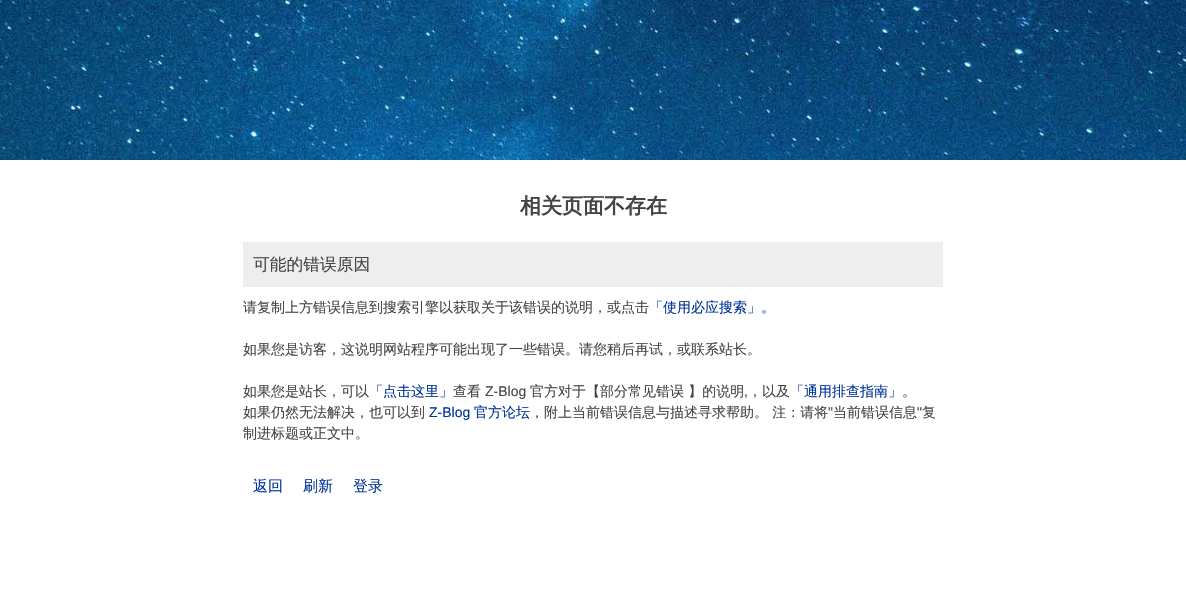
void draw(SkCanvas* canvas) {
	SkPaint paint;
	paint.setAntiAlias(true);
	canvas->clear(0xffffffff);
	canvas->drawImageRect(SkImages::DeferredFromEncodedData(SkData::MakeFromFileName("img1.png")), SkRect::MakeXYWH(0, 0, 1186, 160), SkSamplingOptions());
	SkFont f1(fontMgr->matchFamilyStyle("WenQuanYi Zen Hei", SkFontStyle::Bold()), 21);
	f1.setSubpixel(true);
	paint.setColor(0xff444444);
	canvas->drawString("相关页面不存在", 520, 213, f1, paint);
	paint.setColor(0xffeeeeee);
	canvas->drawRect(SkRect::MakeXYWH(243, 242, 700, 45), paint);
	SkFont f2(fontMgr->matchFamilyStyle("WenQuanYi Zen Hei", SkFontStyle(500, SkFontStyle::kNormal_Width, SkFontStyle::kUpright_Slant)), 16.75);
	f2.setSubpixel(true);
	paint.setColor(0xff444444);
	canvas->drawString("可能的错误原因", 253, 270, f2, paint);
	SkFont f3(fontMgr->matchFamilyStyle("WenQuanYi Zen Hei", SkFontStyle(500, SkFontStyle::kNormal_Width, SkFontStyle::kUpright_Slant)), 14);
	f3.setSubpixel(true);
	canvas->drawString("请复制上方错误信息到搜索引擎以获取关于该错误的说明，或点击", 243, 312, f3, paint);
	paint.setColor(0xff003399);
	canvas->drawString("「使用必应搜索」。", 649, 312, f3, paint);
	paint.setColor(0xff444444);
	canvas->drawString("如果您是访客，这说明网站程序可能出现了一些错误。请您稍后再试，或联系站长。", 243, 354, f3, paint);
	canvas->drawString("如果您是站长，可以", 243, 396, f3, paint);
	paint.setColor(0xff003399);
	canvas->drawString("「点击这里」", 369, 396, f3, paint);
	paint.setColor(0xff444444);
	canvas->drawString("查看", 453, 396, f3, paint);
	SkFont f4(fontMgr->matchFamilyStyle("Liberation Sans", SkFontStyle::Normal()), 14);
	f4.setSubpixel(true);
	canvas->drawString("Z-Blog", 485, 396, f4, paint);
	canvas->drawString("官方对于【部分常见错误 】的说明", 530, 396, f3, paint);
	canvas->drawString(",", 744, 396, f4, paint);
	canvas->drawString("，以及", 748, 396, f3, paint);
	paint.setColor(0xff003399);
	canvas->drawString("「通用排查指南」", 790, 396, f3, paint);
	paint.setColor(0xff444444);
	canvas->drawString("。", 902, 396, f3, paint);
	canvas->drawString("如果仍然无法解决，也可以到", 243, 417, f3, paint);
	paint.setColor(0xff003399);
	canvas->drawString("Z-Blog", 429, 417, f4, paint);
	canvas->drawString("官方论坛", 474, 417, f3, paint);
	paint.setColor(0xff444444);
	canvas->drawString("，附上当前错误信息与描述寻求帮助。 注：请将", 530, 417, f3, paint);
	canvas->drawString("\"", 828, 417, f4, paint);
	canvas->drawString("当前错误信息", 833, 417, f3, paint);
	canvas->drawString("\"", 917, 417, f4, paint);
	canvas->drawString("复", 922, 417, f3, paint);
	canvas->drawString("制进标题或正文中。", 243, 438, f3, paint);
	SkFont f5(fontMgr->matchFamilyStyle("WenQuanYi Zen Hei", SkFontStyle(500, SkFontStyle::kNormal_Width, SkFontStyle::kUpright_Slant)), 15);
	f5.setSubpixel(true);
	paint.setColor(0xff003399);
	canvas->drawString("返回", 253, 491, f5, paint);
	canvas->drawString("刷新", 303, 491, f5, paint);
	canvas->drawString("登录", 353, 491, f5, paint);
}
